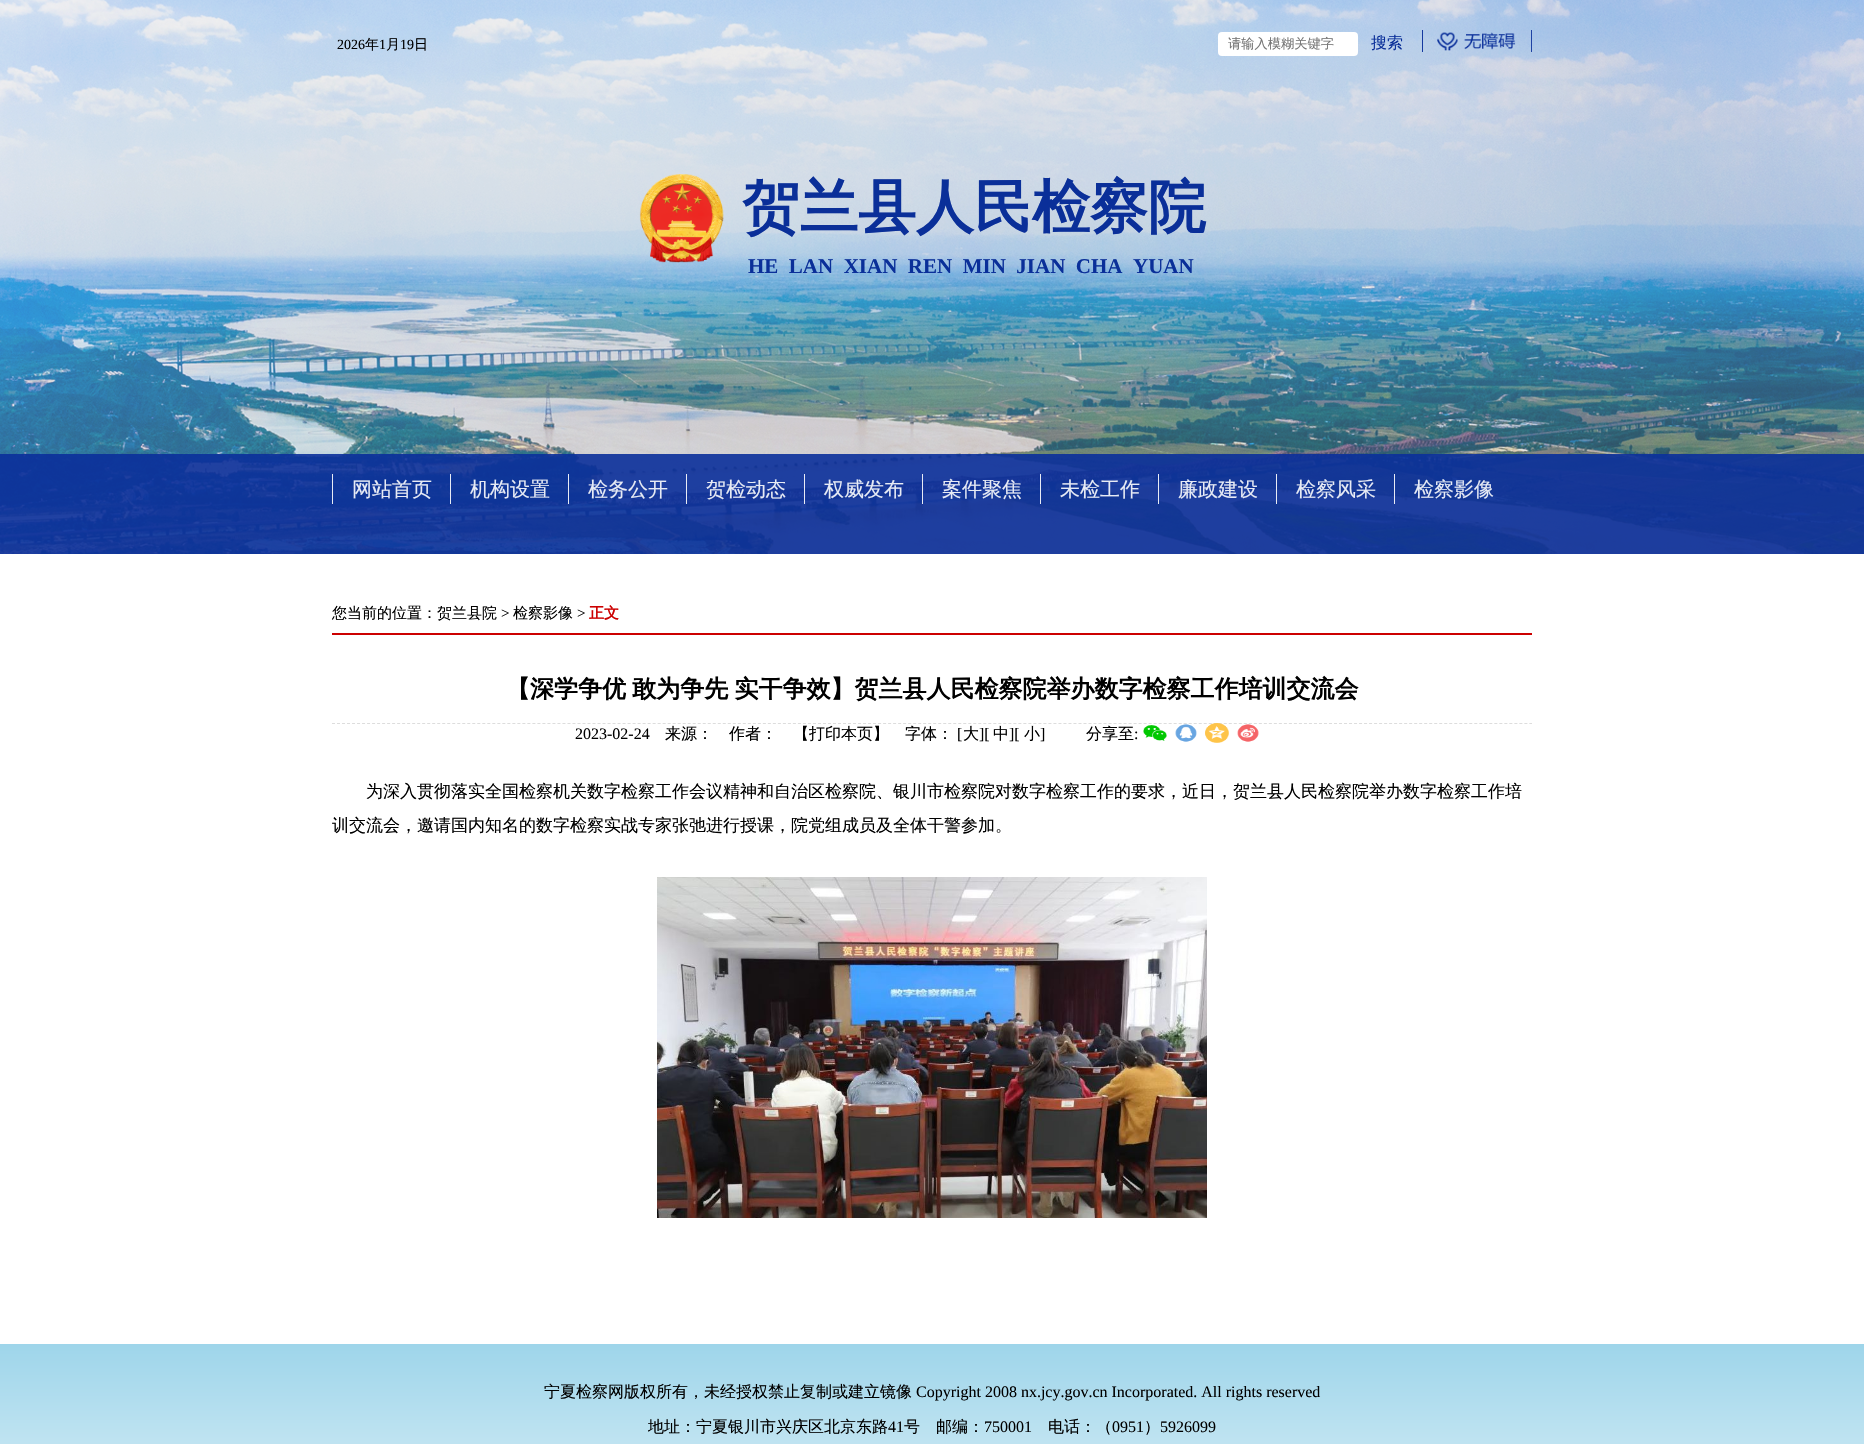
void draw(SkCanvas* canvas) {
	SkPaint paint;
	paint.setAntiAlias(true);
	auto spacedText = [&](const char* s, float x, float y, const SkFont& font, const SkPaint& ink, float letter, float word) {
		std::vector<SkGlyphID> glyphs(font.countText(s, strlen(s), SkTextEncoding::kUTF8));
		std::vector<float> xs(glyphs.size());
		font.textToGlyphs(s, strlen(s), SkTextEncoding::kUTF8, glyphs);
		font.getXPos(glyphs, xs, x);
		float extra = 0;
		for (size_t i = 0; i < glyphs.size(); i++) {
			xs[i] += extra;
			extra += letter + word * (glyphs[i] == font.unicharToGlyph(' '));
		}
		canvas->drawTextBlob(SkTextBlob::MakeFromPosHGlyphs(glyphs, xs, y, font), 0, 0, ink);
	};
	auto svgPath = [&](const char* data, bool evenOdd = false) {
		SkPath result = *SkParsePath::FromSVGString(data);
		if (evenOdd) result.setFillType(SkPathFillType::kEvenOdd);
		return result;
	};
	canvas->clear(0xffffffff);
	canvas->drawImageRect(SkImages::DeferredFromEncodedData(SkData::MakeFromFileName("img1.png")), SkRect::MakeXYWH(0, 0, 1864, 554), SkSamplingOptions());
	SkFont f1(fontMgr->matchFamilyStyle("Liberation Serif", SkFontStyle::Normal()), 14);
	f1.setSubpixel(true);
	paint.setColor(0xff000000);
	canvas->drawString("2026", 337, 49, f1, paint);
	SkFont f2(fontMgr->matchFamilyStyle("WenQuanYi Zen Hei", SkFontStyle(500, SkFontStyle::kNormal_Width, SkFontStyle::kUpright_Slant)), 14);
	f2.setSubpixel(true);
	canvas->drawString("年", 365, 49, f2, paint);
	canvas->drawString("1", 379, 49, f1, paint);
	canvas->drawString("月", 386, 49, f2, paint);
	canvas->drawString("19", 400, 49, f1, paint);
	canvas->drawString("日", 414, 49, f2, paint);
	paint.setColor(0xffffffff);
	canvas->drawRoundRect(SkRect::MakeXYWH(1218, 32, 140, 24), 4, 4, paint);
	SkFont f3(fontMgr->matchFamilyStyle("WenQuanYi Zen Hei", SkFontStyle(500, SkFontStyle::kNormal_Width, SkFontStyle::kUpright_Slant)), 13.25);
	f3.setSubpixel(true);
	paint.setColor(0xff757575);
	canvas->drawString("请输入模糊关键字", 1228, 48, f3, paint);
	SkFont f4(fontMgr->matchFamilyStyle("WenQuanYi Zen Hei", SkFontStyle(500, SkFontStyle::kNormal_Width, SkFontStyle::kUpright_Slant)), 16);
	f4.setSubpixel(true);
	paint.setColor(0xff0a2f99);
	canvas->drawString("搜索", 1371, 48, f4, paint);
	canvas->drawImageRect(SkImages::DeferredFromEncodedData(SkData::MakeFromFileName("img2.png")), SkRect::MakeXYWH(1422, 30, 110, 22), SkSamplingOptions());
	canvas->drawImageRect(SkImages::DeferredFromEncodedData(SkData::MakeFromFileName("img3.png")), SkRect::MakeXYWH(639, 174, 85, 89), SkSamplingOptions());
	SkFont f5(fontMgr->matchFamilyStyle("WenQuanYi Zen Hei", SkFontStyle::Bold()), 58);
	f5.setSubpixel(true);
	canvas->drawString("贺兰县人民检察院", 742, 227, f5, paint);
	SkFont f6(fontMgr->matchFamilyStyle("Liberation Serif", SkFontStyle::Bold()), 21);
	f6.setSubpixel(true);
	canvas->drawString("HE  LAN  XIAN  REN  MIN  JIAN  CHA  YUAN", 748, 273, f6, paint);
	paint.setColor(0xe60a2f9a);
	canvas->drawRect(SkRect::MakeXYWH(0, 454, 1864, 100), paint);
	paint.setColor(0xe6ffffff);
	canvas->drawRect(SkRect::MakeXYWH(332, 474, 1, 30), paint);
	SkFont f7(fontMgr->matchFamilyStyle("WenQuanYi Zen Hei", SkFontStyle(500, SkFontStyle::kNormal_Width, SkFontStyle::kUpright_Slant)), 20);
	f7.setSubpixel(true);
	paint.setColor(0xffe7ebf5);
	canvas->drawString("网站首页", 352, 496, f7, paint);
	paint.setColor(0xe6ffffff);
	canvas->drawRect(SkRect::MakeXYWH(450, 474, 1, 30), paint);
	paint.setColor(0xffe7ebf5);
	canvas->drawString("机构设置", 470, 496, f7, paint);
	paint.setColor(0xe6ffffff);
	canvas->drawRect(SkRect::MakeXYWH(568, 474, 1, 30), paint);
	paint.setColor(0xffe7ebf5);
	canvas->drawString("检务公开", 588, 496, f7, paint);
	paint.setColor(0xe6ffffff);
	canvas->drawRect(SkRect::MakeXYWH(686, 474, 1, 30), paint);
	paint.setColor(0xffe7ebf5);
	canvas->drawString("贺检动态", 706, 496, f7, paint);
	paint.setColor(0xe6ffffff);
	canvas->drawRect(SkRect::MakeXYWH(804, 474, 1, 30), paint);
	paint.setColor(0xffe7ebf5);
	canvas->drawString("权威发布", 824, 496, f7, paint);
	paint.setColor(0xe6ffffff);
	canvas->drawRect(SkRect::MakeXYWH(922, 474, 1, 30), paint);
	paint.setColor(0xffe7ebf5);
	canvas->drawString("案件聚焦", 942, 496, f7, paint);
	paint.setColor(0xe6ffffff);
	canvas->drawRect(SkRect::MakeXYWH(1040, 474, 1, 30), paint);
	paint.setColor(0xffe7ebf5);
	canvas->drawString("未检工作", 1060, 496, f7, paint);
	paint.setColor(0xe6ffffff);
	canvas->drawRect(SkRect::MakeXYWH(1158, 474, 1, 30), paint);
	paint.setColor(0xffe7ebf5);
	canvas->drawString("廉政建设", 1178, 496, f7, paint);
	paint.setColor(0xe6ffffff);
	canvas->drawRect(SkRect::MakeXYWH(1276, 474, 1, 30), paint);
	paint.setColor(0xffe7ebf5);
	canvas->drawString("检察风采", 1296, 496, f7, paint);
	paint.setColor(0xe6ffffff);
	canvas->drawRect(SkRect::MakeXYWH(1394, 474, 1, 30), paint);
	paint.setColor(0xffe7ebf5);
	canvas->drawString("检察影像", 1414, 496, f7, paint);
	paint.setColor(0xffcc0000);
	canvas->drawRect(SkRect::MakeXYWH(332, 633, 1200, 2), paint);
	SkFont f8(fontMgr->matchFamilyStyle("WenQuanYi Zen Hei", SkFontStyle(500, SkFontStyle::kNormal_Width, SkFontStyle::kUpright_Slant)), 15);
	f8.setSubpixel(true);
	paint.setColor(0xff000000);
	canvas->drawString("您当前的位置：贺兰县院", 332, 618, f8, paint);
	SkFont f9(fontMgr->matchFamilyStyle("Liberation Serif", SkFontStyle::Normal()), 15);
	f9.setSubpixel(true);
	canvas->drawString(">", 501, 618, f9, paint);
	canvas->drawString("检察影像", 513, 618, f8, paint);
	canvas->drawString(">", 577, 618, f9, paint);
	SkFont f10(fontMgr->matchFamilyStyle("WenQuanYi Zen Hei", SkFontStyle::Bold()), 15);
	f10.setSubpixel(true);
	paint.setColor(0xffcc0000);
	canvas->drawString("正文", 589, 618, f10, paint);
	SkFont f11(fontMgr->matchFamilyStyle("WenQuanYi Zen Hei", SkFontStyle::Bold()), 24);
	f11.setSubpixel(true);
	paint.setColor(0xff000000);
	spacedText("【深学争优 敢为争先 实干争效】贺兰县人民检察院举办数字检察工作培训交流会", 506, 697, f11, paint, 0, -1);
	paint.setStroke(true);
	paint.setStrokeWidth(1);
	paint.setColor(0xffdddddd);
	paint.setPathEffect(SkDashPathEffect::Make({{3, 2.01f}}, 0));
	canvas->drawPath(svgPath("M332 723.5H1532"), paint);
	paint.setPathEffect(nullptr);
	SkFont f12(fontMgr->matchFamilyStyle("Liberation Serif", SkFontStyle::Normal()), 16);
	f12.setSubpixel(true);
	paint.setStroke(false);
	paint.setColor(0xff000000);
	canvas->drawString("2023-02-24", 575, 739, f12, paint);
	canvas->drawString("来源：", 665, 739, f4, paint);
	canvas->drawString("作者：", 729, 739, f4, paint);
	canvas->drawString("【打印本页】", 793, 739, f4, paint);
	canvas->drawString("字体：", 905, 739, f4, paint);
	canvas->drawString("[", 957, 739, f12, paint);
	canvas->drawString("大", 963, 739, f4, paint);
	canvas->drawString("][", 979, 739, f12, paint);
	canvas->drawString("中", 993, 739, f4, paint);
	canvas->drawString("][", 1009, 739, f12, paint);
	canvas->drawString("小", 1024, 739, f4, paint);
	canvas->drawString("]", 1040, 739, f12, paint);
	canvas->drawString("分享至", 1086, 739, f4, paint);
	canvas->drawString(":", 1134, 739, f12, paint);
	canvas->drawImageRect(SkImages::DeferredFromEncodedData(SkData::MakeFromFileName("img4.png")), SkRect::MakeXYWH(1143, 725, 24, 16), SkSamplingOptions());
	canvas->drawImageRect(SkImages::DeferredFromEncodedData(SkData::MakeFromFileName("img5.png")), SkRect::MakeXYWH(1175, 724, 22, 18), SkSamplingOptions());
	canvas->drawImageRect(SkImages::DeferredFromEncodedData(SkData::MakeFromFileName("img6.png")), SkRect::MakeXYWH(1205, 723, 24, 20), SkSamplingOptions());
	canvas->drawImageRect(SkImages::DeferredFromEncodedData(SkData::MakeFromFileName("img7.png")), SkRect::MakeXYWH(1237, 724, 22, 18), SkSamplingOptions());
	SkFont f13(fontMgr->matchFamilyStyle("WenQuanYi Zen Hei", SkFontStyle(500, SkFontStyle::kNormal_Width, SkFontStyle::kUpright_Slant)), 17);
	f13.setSubpixel(true);
	canvas->drawString("为深入贯彻落实全国检察机关数字检察工作会议精神和自治区检察院、银川市检察院对数字检察工作的要求，近日，贺兰县人民检察院举办数字检察工作培", 366, 797, f13, paint);
	canvas->drawString("训交流会，邀请国内知名的数字检察实战专家张弛进行授课，院党组成员及全体干警参加。", 332, 831, f13, paint);
	canvas->drawImageRect(SkImages::DeferredFromEncodedData(SkData::MakeFromFileName("img8.png")), SkRect::MakeXYWH(657, 877, 550, 341), SkSamplingOptions());
	{
		const SkColor colors[] = {0xff9ed5ea, 0xffffffff};
		const float stops[] = {0, 1};
		const SkPoint ends[] = {{932, 1344}, {932, 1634}};
		paint.setShader(SkGradientShader::MakeLinear(ends, colors, stops, 2, SkTileMode::kClamp));
		paint.setAlpha(255);
	}
	canvas->drawRect(SkRect::MakeXYWH(0, 1344, 1864, 100), paint);
	paint.setShader(nullptr);
	paint.setColor(0xff000000);
	canvas->drawString("宁夏检察网版权所有，未经授权禁止复制或建立镜像", 544, 1397, f4, paint);
	canvas->drawString("Copyright 2008 nx.jcy.gov.cn Incorporated. All rights reserved", 916, 1397, f12, paint);
	canvas->drawString("地址：宁夏银川市兴庆区北京东路", 648, 1432, f4, paint);
	canvas->drawString("41", 888, 1432, f12, paint);
	canvas->drawString("号", 904, 1432, f4, paint);
	canvas->drawString("邮编：", 936, 1432, f4, paint);
	canvas->drawString("750001", 984, 1432, f12, paint);
	canvas->drawString("电话：（", 1048, 1432, f4, paint);
	canvas->drawString("0951", 1112, 1432, f12, paint);
	canvas->drawString("）", 1144, 1432, f4, paint);
	canvas->drawString("5926099", 1160, 1432, f12, paint);
}
